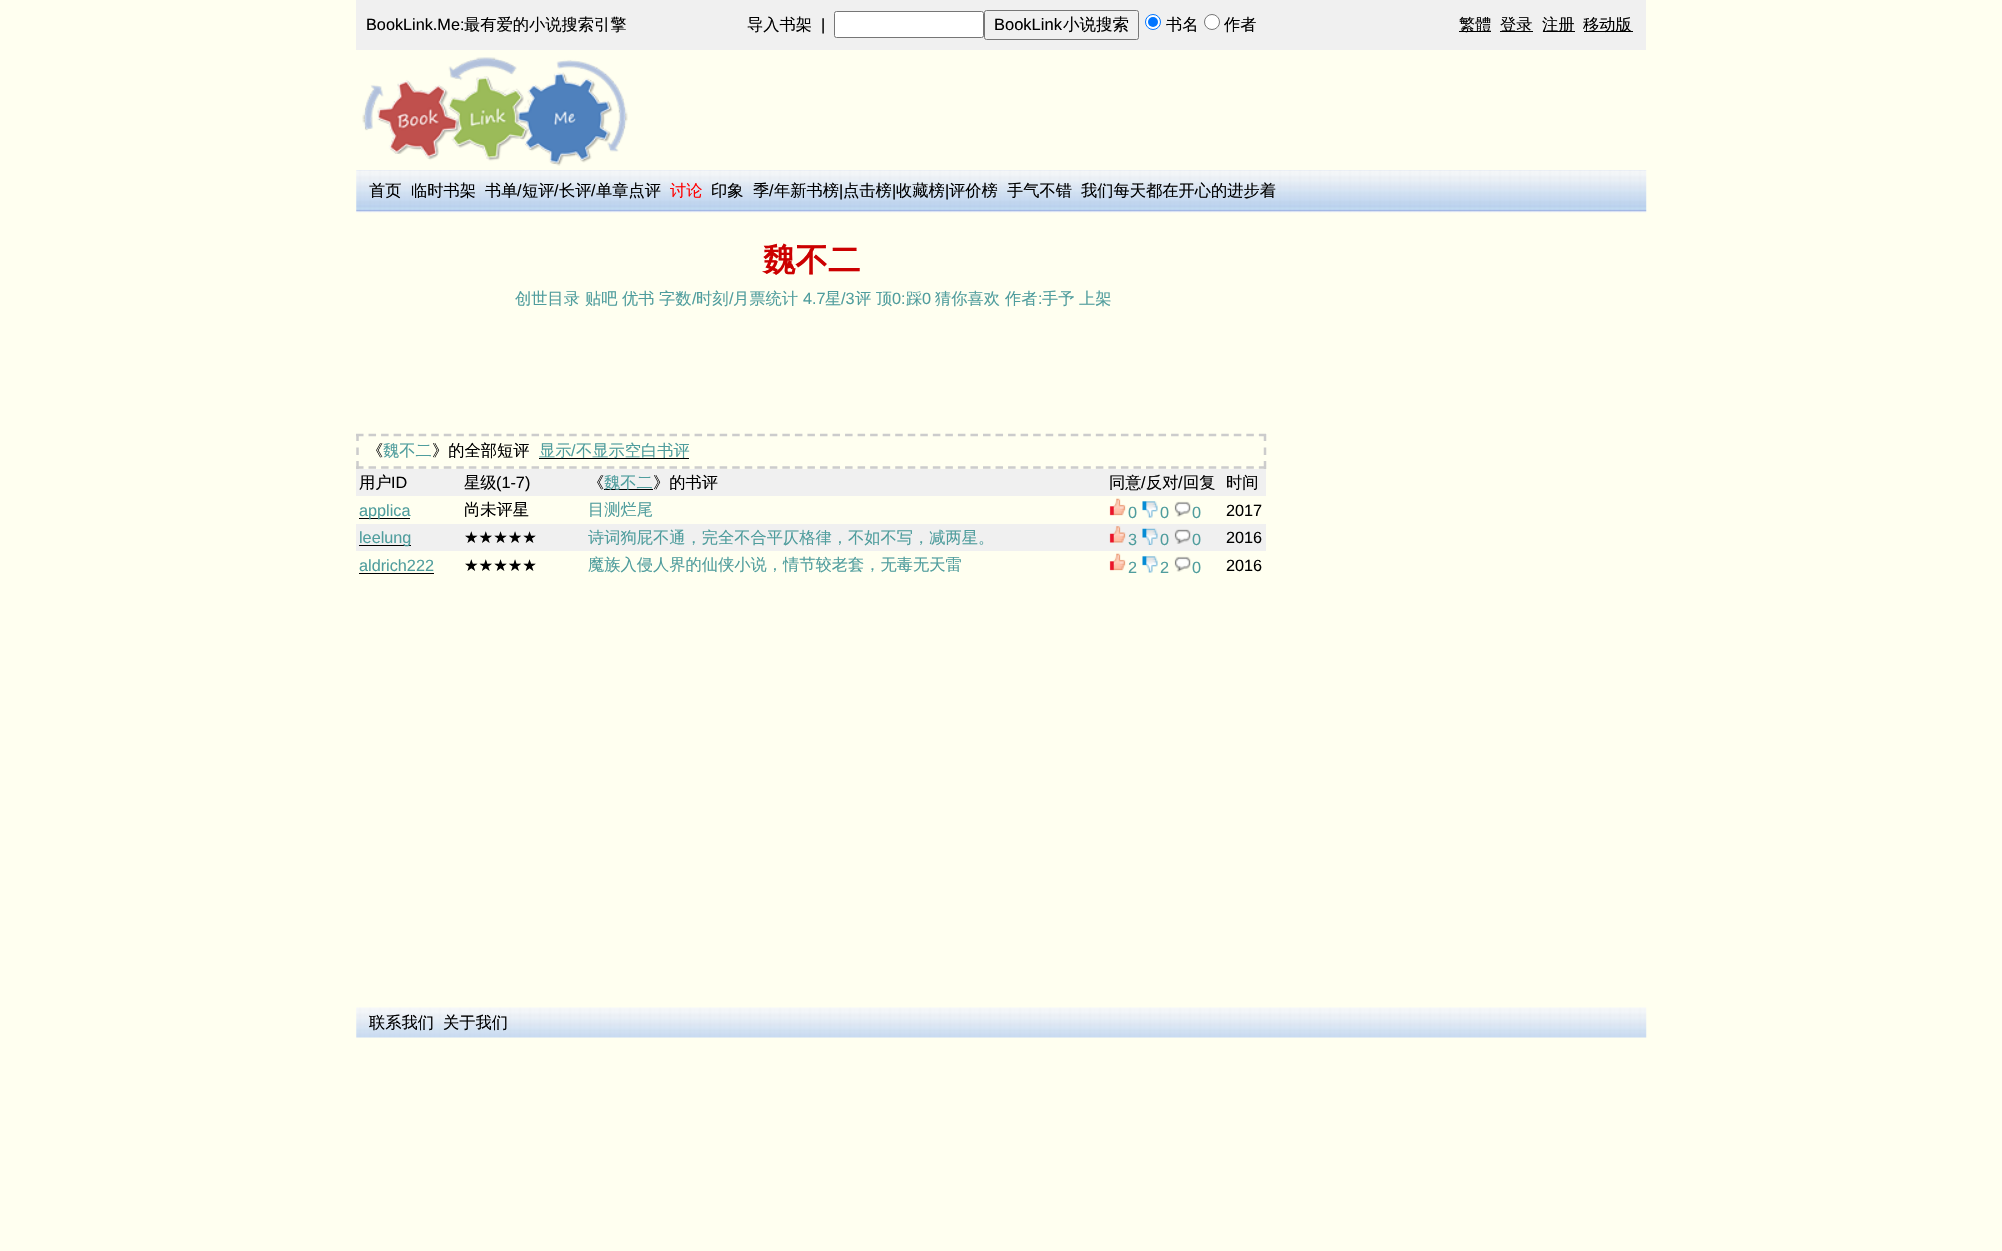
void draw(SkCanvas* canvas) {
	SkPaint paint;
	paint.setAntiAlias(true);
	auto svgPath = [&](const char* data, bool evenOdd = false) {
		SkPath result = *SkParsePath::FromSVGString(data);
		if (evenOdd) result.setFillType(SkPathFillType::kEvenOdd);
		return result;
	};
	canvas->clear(0xfffffff0);
	paint.setColor(0xfff0f0f0);
	canvas->drawRect(SkRect::MakeXYWH(356, 0, 1290, 50), paint);
	SkFont f1(fontMgr->matchFamilyStyle("Liberation Sans", SkFontStyle::Normal()), 16.25);
	f1.setSubpixel(true);
	paint.setColor(0xff000000);
	canvas->drawString("BookLink.Me:", 366, 30, f1, paint);
	SkFont f2(fontMgr->matchFamilyStyle("WenQuanYi Zen Hei", SkFontStyle(500, SkFontStyle::kNormal_Width, SkFontStyle::kUpright_Slant)), 16.25);
	f2.setSubpixel(true);
	canvas->drawString("最有爱的小说搜索引擎", 464, 30, f2, paint);
	canvas->drawString("导入书架", 747, 30, f2, paint);
	canvas->drawString("|", 821, 30, f1, paint);
	paint.setColor(0xffffffff);
	canvas->drawRoundRect(SkRect::MakeXYWH(834.5, 11.5, 149, 26), 2, 2, paint);
	paint.setStroke(true);
	paint.setStrokeWidth(1);
	paint.setColor(0xff767676);
	canvas->drawRoundRect(SkRect::MakeXYWH(834.5, 11.5, 149, 26), 2, 2, paint);
	canvas->drawRoundRect(SkRect::MakeXYWH(984.5, 10.5, 154, 29), 2, 2, paint);
	SkFont f3(fontMgr->matchFamilyStyle("Liberation Sans", SkFontStyle::Normal()), 16.5);
	f3.setSubpixel(true);
	paint.setStroke(false);
	paint.setColor(0xff000000);
	canvas->drawString("BookLink", 994, 30, f3, paint);
	SkFont f4(fontMgr->matchFamilyStyle("WenQuanYi Zen Hei", SkFontStyle(500, SkFontStyle::kNormal_Width, SkFontStyle::kUpright_Slant)), 16.5);
	f4.setSubpixel(true);
	canvas->drawString("小说搜索", 1063, 30, f4, paint);
	paint.setColor(0xffffffff);
	canvas->drawCircle(1153, 22, 7.5, paint);
	paint.setStroke(true);
	paint.setColor(0xff0075ff);
	canvas->drawCircle(1153, 22, 7.5, paint);
	paint.setStroke(false);
	canvas->drawCircle(1153, 22, 5, paint);
	paint.setColor(0xff000000);
	canvas->drawString("书名", 1166, 30, f2, paint);
	paint.setColor(0xffffffff);
	canvas->drawCircle(1212, 22, 7.5, paint);
	paint.setStroke(true);
	paint.setColor(0xff767676);
	canvas->drawCircle(1212, 22, 7.5, paint);
	paint.setStroke(false);
	paint.setColor(0xff000000);
	canvas->drawString("作者", 1224, 30, f2, paint);
	canvas->drawRect(SkRect::MakeXYWH(1459, 31, 32, 1), paint);
	canvas->drawString("繁體", 1459, 30, f2, paint);
	canvas->drawRect(SkRect::MakeXYWH(1500, 31, 33, 1), paint);
	canvas->drawString("登录", 1500, 30, f2, paint);
	canvas->drawRect(SkRect::MakeXYWH(1543, 31, 32, 1), paint);
	canvas->drawString("注册", 1542, 30, f2, paint);
	canvas->drawRect(SkRect::MakeXYWH(1584, 31, 49, 1), paint);
	canvas->drawString("移动版", 1583, 30, f2, paint);
	canvas->drawImageRect(SkImages::DeferredFromEncodedData(SkData::MakeFromFileName("img1.png")), SkRect::MakeXYWH(362, 57, 266, 109), SkSamplingOptions());
	canvas->drawImageRect(SkImages::DeferredFromEncodedData(SkData::MakeFromFileName("img2.png")), SkRect::MakeXYWH(356, 170, 1291, 43), SkSamplingOptions());
	canvas->drawString("首页", 369, 196, f2, paint);
	canvas->drawString("临时书架", 411, 196, f2, paint);
	canvas->drawString("书单", 485, 196, f2, paint);
	canvas->drawString("/", 517, 196, f1, paint);
	canvas->drawString("短评", 522, 196, f2, paint);
	canvas->drawString("/", 554, 196, f1, paint);
	canvas->drawString("长评", 559, 196, f2, paint);
	canvas->drawString("/", 591, 196, f1, paint);
	canvas->drawString("单章点评", 596, 196, f2, paint);
	paint.setColor(0xffff0000);
	canvas->drawString("讨论", 670, 196, f2, paint);
	paint.setColor(0xff000000);
	canvas->drawString("印象", 711, 196, f2, paint);
	canvas->drawString("季", 753, 196, f2, paint);
	canvas->drawString("/", 769, 196, f1, paint);
	canvas->drawString("年新书榜", 774, 196, f2, paint);
	canvas->drawString("|", 839, 196, f1, paint);
	canvas->drawString("点击榜", 843, 196, f2, paint);
	canvas->drawString("|", 892, 196, f1, paint);
	canvas->drawString("收藏榜", 896, 196, f2, paint);
	canvas->drawString("|", 945, 196, f1, paint);
	canvas->drawString("评价榜", 949, 196, f2, paint);
	canvas->drawString("手气不错", 1007, 196, f2, paint);
	canvas->drawString("我们每天都在开心的进步着", 1081, 196, f2, paint);
	SkFont f5(fontMgr->matchFamilyStyle("WenQuanYi Zen Hei", SkFontStyle::Bold()), 32.5);
	f5.setSubpixel(true);
	paint.setColor(0xffcc0000);
	canvas->drawString("魏不二", 763, 271, f5, paint);
	paint.setColor(0xff4f9d9d);
	canvas->drawString("创世目录", 515, 304, f2, paint);
	canvas->drawString("贴吧", 585, 304, f2, paint);
	canvas->drawString("优书", 622, 304, f2, paint);
	canvas->drawString("字数", 659, 304, f2, paint);
	canvas->drawString("/", 692, 304, f1, paint);
	canvas->drawString("时刻", 696, 304, f2, paint);
	canvas->drawString("/", 729, 304, f1, paint);
	canvas->drawString("月票统计", 733, 304, f2, paint);
	canvas->drawString("4.7", 803, 304, f1, paint);
	canvas->drawString("星", 825, 304, f2, paint);
	canvas->drawString("/3", 841, 304, f1, paint);
	canvas->drawString("评", 855, 304, f2, paint);
	canvas->drawString("顶", 876, 304, f2, paint);
	canvas->drawString("0:", 892, 304, f1, paint);
	canvas->drawString("踩", 906, 304, f2, paint);
	canvas->drawString("0", 922, 304, f1, paint);
	canvas->drawString("猜你喜欢", 935, 304, f2, paint);
	canvas->drawString("作者", 1005, 304, f2, paint);
	canvas->drawString(":", 1038, 304, f1, paint);
	canvas->drawString("手予", 1042, 304, f2, paint);
	canvas->drawString("上架", 1079, 304, f2, paint);
	paint.setStroke(true);
	paint.setStrokeWidth(2.5);
	paint.setColor(0xffcccccc);
	paint.setPathEffect(SkDashPathEffect::Make({{7.5f, 5.04f}}, 0));
	canvas->drawPath(svgPath("M356 435H1266"), paint);
	paint.setPathEffect(nullptr);
	canvas->drawPath(svgPath("M1265 434V441M1265 447.5V455M1265 461V469"), paint);
	paint.setPathEffect(SkDashPathEffect::Make({{7.5f, 5.04f}}, 0));
	canvas->drawPath(svgPath("M356 467.5H1266"), paint);
	paint.setPathEffect(nullptr);
	canvas->drawPath(svgPath("M357.5 434V441M357.5 447.5V455M357.5 461V469"), paint);
	paint.setStroke(false);
	paint.setColor(0xff000000);
	canvas->drawString("《", 367, 456, f2, paint);
	paint.setColor(0xff4f9d9d);
	canvas->drawString("魏不二", 383, 456, f2, paint);
	paint.setColor(0xff000000);
	canvas->drawString("》的全部短评", 432, 456, f2, paint);
	canvas->drawRect(SkRect::MakeXYWH(539, 458, 150, 1), paint);
	paint.setColor(0xff4f9d9d);
	canvas->drawString("显示", 539, 456, f2, paint);
	canvas->drawString("/", 571, 456, f1, paint);
	canvas->drawString("不显示空白书评", 576, 456, f2, paint);
	paint.setColor(0xfff0f0f0);
	canvas->drawRect(SkRect::MakeXYWH(356, 469, 910, 27), paint);
	paint.setColor(0xff000000);
	canvas->drawString("用户", 359, 488, f2, paint);
	canvas->drawString("ID", 391, 488, f1, paint);
	canvas->drawString("星级", 464, 488, f2, paint);
	canvas->drawString("(1-7)", 496, 488, f1, paint);
	canvas->drawString("《", 588, 488, f2, paint);
	canvas->drawRect(SkRect::MakeXYWH(604, 489, 49, 1), paint);
	paint.setColor(0xff4f9d9d);
	canvas->drawString("魏不二", 604, 488, f2, paint);
	paint.setColor(0xff000000);
	canvas->drawString("》的书评", 653, 488, f2, paint);
	canvas->drawString("同意", 1109, 488, f2, paint);
	canvas->drawString("/", 1141, 488, f1, paint);
	canvas->drawString("反对", 1146, 488, f2, paint);
	canvas->drawString("/", 1178, 488, f1, paint);
	canvas->drawString("回复", 1183, 488, f2, paint);
	canvas->drawString("时间", 1226, 488, f2, paint);
	canvas->drawRect(SkRect::MakeXYWH(359, 518, 51, 1), paint);
	paint.setColor(0xff4f9d9d);
	canvas->drawString("applica", 359, 516, f1, paint);
	paint.setColor(0xff000000);
	canvas->drawString("尚未评星", 464, 515, f2, paint);
	paint.setColor(0xff4f9d9d);
	canvas->drawString("目测烂尾", 588, 515, f2, paint);
	canvas->drawImageRect(SkImages::DeferredFromEncodedData(SkData::MakeFromFileName("img3.png")), SkRect::MakeXYWH(1109, 498, 17, 18), SkSamplingOptions());
	canvas->drawString("0", 1128, 518, f1, paint);
	canvas->drawImageRect(SkImages::DeferredFromEncodedData(SkData::MakeFromFileName("img4.png")), SkRect::MakeXYWH(1142, 501, 16, 17), SkSamplingOptions());
	canvas->drawString("0", 1160, 518, f1, paint);
	canvas->drawImageRect(SkImages::DeferredFromEncodedData(SkData::MakeFromFileName("img5.png")), SkRect::MakeXYWH(1174, 501, 17, 16), SkSamplingOptions());
	canvas->drawString("0", 1192, 518, f1, paint);
	paint.setColor(0xff000000);
	canvas->drawString("2017", 1226, 516, f1, paint);
	paint.setColor(0xfff0f0f0);
	canvas->drawRect(SkRect::MakeXYWH(356, 524, 910, 27), paint);
	paint.setColor(0xff000000);
	canvas->drawRect(SkRect::MakeXYWH(359, 545, 52, 1), paint);
	paint.setColor(0xff4f9d9d);
	canvas->drawString("leelung", 359, 543, f1, paint);
	SkFont f6(fontMgr->matchFamilyStyle("DejaVu Sans", SkFontStyle::Normal()), 16.25);
	f6.setSubpixel(true);
	paint.setColor(0xff000000);
	canvas->drawString("★★★★★", 464, 543, f6, paint);
	paint.setColor(0xff4f9d9d);
	canvas->drawString("诗词狗屁不通，完全不合平仄格律，不如不写，减两星。", 588, 543, f2, paint);
	canvas->drawImageRect(SkImages::DeferredFromEncodedData(SkData::MakeFromFileName("img6.png")), SkRect::MakeXYWH(1109, 526, 17, 17), SkSamplingOptions());
	canvas->drawString("3", 1128, 545, f1, paint);
	canvas->drawImageRect(SkImages::DeferredFromEncodedData(SkData::MakeFromFileName("img7.png")), SkRect::MakeXYWH(1142, 528, 16, 17), SkSamplingOptions());
	canvas->drawString("0", 1160, 545, f1, paint);
	canvas->drawImageRect(SkImages::DeferredFromEncodedData(SkData::MakeFromFileName("img8.png")), SkRect::MakeXYWH(1174, 529, 17, 15), SkSamplingOptions());
	canvas->drawString("0", 1192, 545, f1, paint);
	paint.setColor(0xff000000);
	canvas->drawString("2016", 1226, 543, f1, paint);
	paint.setColor(0xff4f9d9d);
	canvas->drawString("aldrich222", 359, 571, f1, paint);
	paint.setColor(0xff000000);
	canvas->drawRect(SkRect::MakeXYWH(359, 573, 75, 1), paint);
	canvas->drawString("★★★★★", 464, 571, f6, paint);
	paint.setColor(0xff4f9d9d);
	canvas->drawString("魔族入侵人界的仙侠小说，情节较老套，无毒无天雷", 588, 570, f2, paint);
	canvas->drawImageRect(SkImages::DeferredFromEncodedData(SkData::MakeFromFileName("img3.png")), SkRect::MakeXYWH(1109, 553, 17, 18), SkSamplingOptions());
	canvas->drawString("2", 1128, 573, f1, paint);
	canvas->drawImageRect(SkImages::DeferredFromEncodedData(SkData::MakeFromFileName("img4.png")), SkRect::MakeXYWH(1142, 556, 16, 17), SkSamplingOptions());
	canvas->drawString("2", 1160, 573, f1, paint);
	canvas->drawImageRect(SkImages::DeferredFromEncodedData(SkData::MakeFromFileName("img5.png")), SkRect::MakeXYWH(1174, 556, 17, 16), SkSamplingOptions());
	canvas->drawString("0", 1192, 573, f1, paint);
	paint.setColor(0xff000000);
	canvas->drawString("2016", 1226, 571, f1, paint);
	canvas->drawImageRect(SkImages::DeferredFromEncodedData(SkData::MakeFromFileName("img9.png")), SkRect::MakeXYWH(356, 1007, 1291, 31), SkSamplingOptions());
	canvas->drawString("联系我们", 369, 1028, f2, paint);
	canvas->drawString("关于我们", 443, 1028, f2, paint);
}
